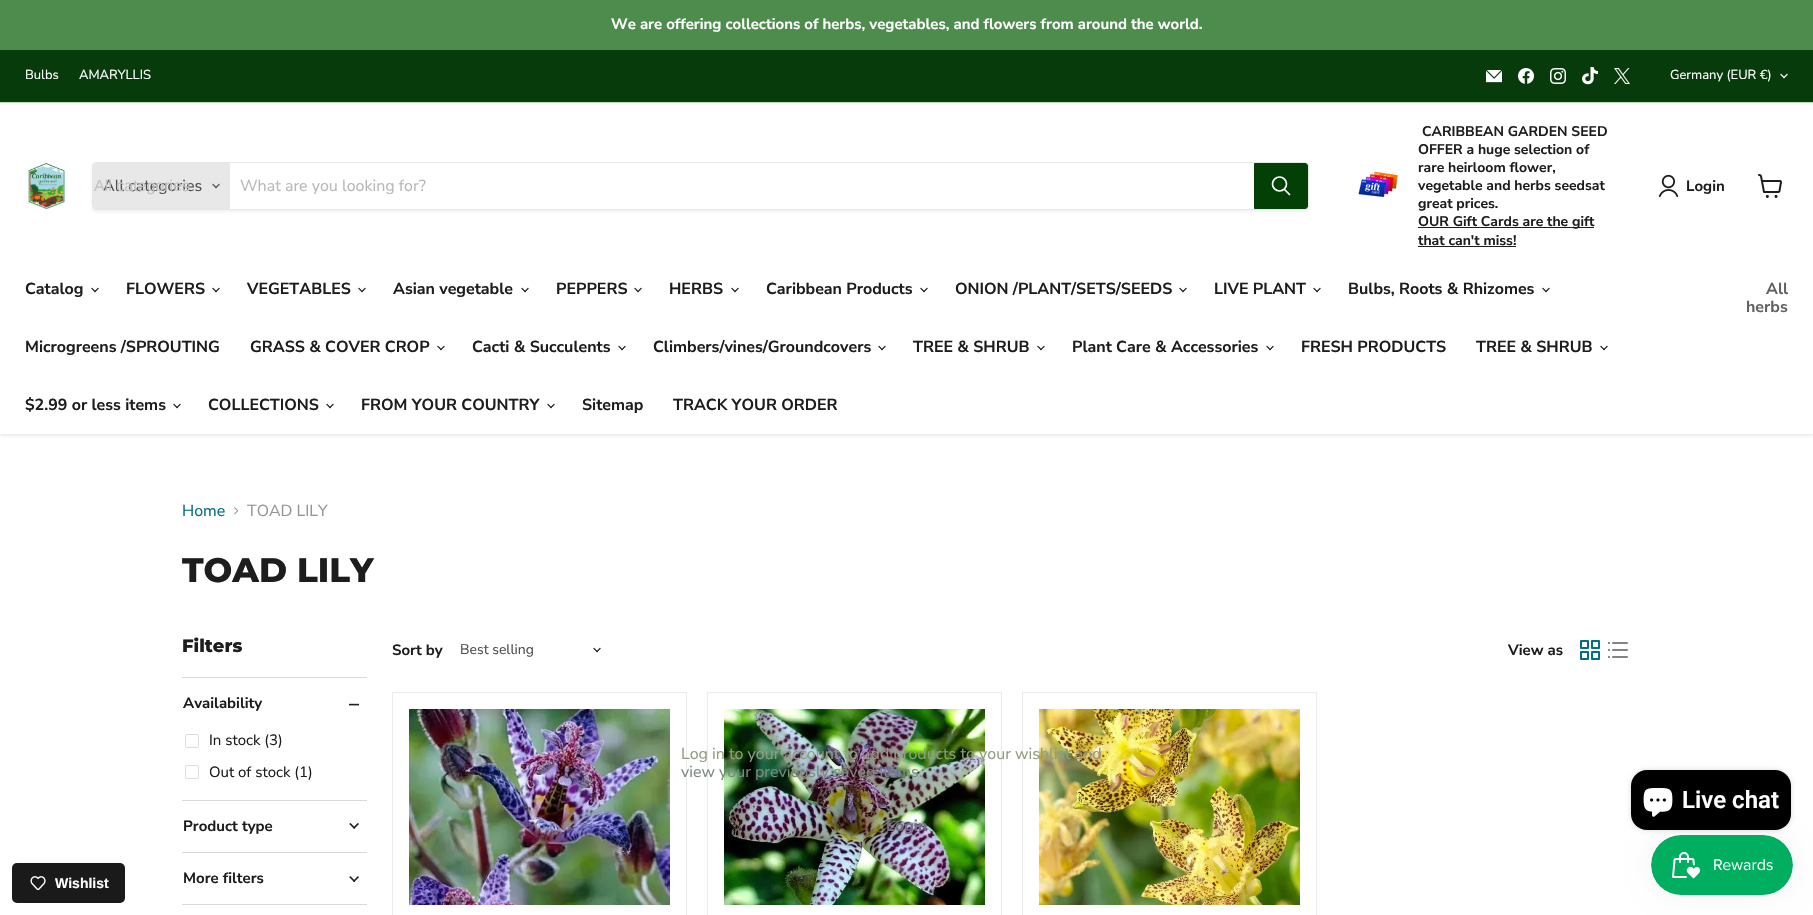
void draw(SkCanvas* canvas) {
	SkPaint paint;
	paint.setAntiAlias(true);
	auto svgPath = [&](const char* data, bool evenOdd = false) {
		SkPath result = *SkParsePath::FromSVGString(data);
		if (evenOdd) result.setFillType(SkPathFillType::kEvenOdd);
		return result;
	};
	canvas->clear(0xffffffff);
	paint.setColor(0xff4d8c4d);
	canvas->drawRect(SkRect::MakeXYWH(0, 0, 1813, 50), paint);
	SkFont f1(fontMgr->matchFamilyStyle("Nunito Sans", SkFontStyle::Bold()), 15);
	f1.setSubpixel(true);
	paint.setColor(0xffffffff);
	canvas->drawString("We are offering collections of herbs, vegetables, and flowers from around the world.", 611, 29, f1, paint);
	canvas->save();
	canvas->clipRect(SkRect::MakeXYWH(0, 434, 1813, 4));
	paint.setColor(0x40808080);
	paint.setMaskFilter(SkMaskFilter::MakeBlur(kNormal_SkBlurStyle, 2));
	canvas->drawRect(SkRect::MakeXYWH(0, 104, 1813, 331), paint);
	paint.setMaskFilter(nullptr);
	canvas->restore();
	paint.setColor(0xff073b0c);
	canvas->drawRect(SkRect::MakeXYWH(0, 50, 1813, 52), paint);
	paint.setColor(0xffbcd9be);
	canvas->drawRect(SkRect::MakeXYWH(0, 102, 1813, 1), paint);
	SkFont f2(fontMgr->matchFamilyStyle("Nunito Sans", SkFontStyle::Normal()), 13);
	f2.setSubpixel(true);
	paint.setColor(0xffffffff);
	canvas->drawString("Bulbs", 25, 79, f2, paint);
	canvas->drawString("AMARYLLIS", 79, 79, f2, paint);
	canvas->drawImageRect(SkImages::DeferredFromEncodedData(SkData::MakeFromFileName("img1.png")), SkRect::MakeXYWH(1486, 70, 16, 13), SkSamplingOptions());
	canvas->drawImageRect(SkImages::DeferredFromEncodedData(SkData::MakeFromFileName("img2.png")), SkRect::MakeXYWH(1518, 68, 16, 16), SkSamplingOptions());
	canvas->drawImageRect(SkImages::DeferredFromEncodedData(SkData::MakeFromFileName("img3.png")), SkRect::MakeXYWH(1550, 68, 16, 16), SkSamplingOptions());
	canvas->drawImageRect(SkImages::DeferredFromEncodedData(SkData::MakeFromFileName("img4.png")), SkRect::MakeXYWH(1582, 67, 16, 18), SkSamplingOptions());
	canvas->drawImageRect(SkImages::DeferredFromEncodedData(SkData::MakeFromFileName("img5.png")), SkRect::MakeXYWH(1614, 68, 16, 16), SkSamplingOptions());
	canvas->drawString("Germany (EUR €)", 1670, 79, f2, paint);
	canvas->drawImageRect(SkImages::DeferredFromEncodedData(SkData::MakeFromFileName("img6.png")), SkRect::MakeXYWH(1780, 73, 8, 6), SkSamplingOptions());
	canvas->drawImageRect(SkImages::DeferredFromEncodedData(SkData::MakeFromFileName("img7.png")), SkRect::MakeXYWH(28, 163, 37, 47), SkSamplingOptions());
	canvas->save();
	canvas->clipPath(svgPath("M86 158H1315V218H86ZM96 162H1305C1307 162 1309 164 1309 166V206C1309 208 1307 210 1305 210H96C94 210 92 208 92 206V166C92 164 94 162 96 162Z", true), true);
	paint.setColor(0x1c808080);
	paint.setMaskFilter(SkMaskFilter::MakeBlur(kNormal_SkBlurStyle, 1.5));
	canvas->drawRoundRect(SkRect::MakeXYWH(92, 164, 1217, 48), 4, 4, paint);
	paint.setMaskFilter(nullptr);
	canvas->restore();
	paint.setStroke(true);
	paint.setStrokeWidth(1);
	paint.setColor(0x33808080);
	canvas->drawRoundRect(SkRect::MakeXYWH(92.5, 162.5, 1216, 47), 3.5, 3.5, paint);
	paint.setStroke(false);
	paint.setColor(0xffe8e8e8);
	canvas->drawPath(svgPath("M96 163H230V209H96C94.5 209 93 207.5 93 206V166C93 164.5 94.5 163 96 163Z"), paint);
	SkFont f3(fontMgr->matchFamilyStyle("Nunito Sans", SkFontStyle::Normal()), 16);
	f3.setSubpixel(true);
	paint.setColor(0xff4d4d4d);
	canvas->drawString("All categories", 103, 191, f3, paint);
	SkFont f4(fontMgr->matchFamilyStyle("Liberation Sans", SkFontStyle::Normal()), 16);
	f4.setSubpixel(true);
	paint.setColor(0xffc3c3c3);
	canvas->drawString("All categories", 94, 191, f4, paint);
	canvas->drawImageRect(SkImages::DeferredFromEncodedData(SkData::MakeFromFileName("img8.png")), SkRect::MakeXYWH(212, 183, 8, 6), SkSamplingOptions());
	paint.setColor(0xffb8b8b8);
	canvas->drawString("What are you looking for?", 240, 191, f3, paint);
	paint.setColor(0xff024006);
	canvas->drawPath(svgPath("M1254.5 163.5H1305C1306.5 163.5 1307.5 164.5 1307.5 166V206C1307.5 207.5 1306.5 208.5 1305 208.5H1254.5Z"), paint);
	paint.setStroke(true);
	canvas->drawPath(svgPath("M1254.5 163.5H1305C1306.5 163.5 1307.5 164.5 1307.5 166V206C1307.5 207.5 1306.5 208.5 1305 208.5H1254.5Z"), paint);
	paint.setStrokeWidth(1.7);
	paint.setStrokeCap(SkPaint::kRound_Cap);
	paint.setColor(0xffffffff);
	canvas->drawPath(svgPath("M1289.5 194.5L1284.5 189.5"), paint);
	paint.setStrokeCap(SkPaint::kButt_Cap);
	canvas->drawCircle(1279.5, 184, 7, paint);
	canvas->drawImageRect(SkImages::DeferredFromEncodedData(SkData::MakeFromFileName("img9.png")), SkRect::MakeXYWH(1358, 171, 40, 27), SkSamplingOptions());
	SkFont f5(fontMgr->matchFamilyStyle("Nunito Sans", SkFontStyle::Bold()), 14);
	f5.setSubpixel(true);
	paint.setStroke(false);
	paint.setColor(0xff1d1d1d);
	canvas->drawString("CARIBBEAN GARDEN SEED", 1422, 136, f5, paint);
	canvas->drawString("OFFER a huge selection of", 1418, 154, f5, paint);
	canvas->drawString("rare heirloom flower,", 1418, 172, f5, paint);
	canvas->drawString("vegetable and herbs seedsat", 1418, 190, f5, paint);
	canvas->drawString("great prices.", 1418, 208, f5, paint);
	canvas->drawRect(SkRect::MakeXYWH(1418, 227, 176, 1), paint);
	canvas->drawString("OUR Gift Cards are the gift", 1418, 226, f5, paint);
	canvas->drawString("that can't miss!", 1418, 245, f5, paint);
	canvas->drawRect(SkRect::MakeXYWH(1418, 246, 98, 1), paint);
	canvas->drawImageRect(SkImages::DeferredFromEncodedData(SkData::MakeFromFileName("img10.png")), SkRect::MakeXYWH(1658, 174, 20, 24), SkSamplingOptions());
	canvas->drawString("Login", 1686, 191, f1, paint);
	canvas->drawImageRect(SkImages::DeferredFromEncodedData(SkData::MakeFromFileName("img11.png")), SkRect::MakeXYWH(1758, 174, 24, 24), SkSamplingOptions());
	SkFont f6(fontMgr->matchFamilyStyle("Nunito Sans", SkFontStyle::Bold()), 16);
	f6.setSubpixel(true);
	canvas->drawString("Catalog", 25, 294, f6, paint);
	canvas->drawImageRect(SkImages::DeferredFromEncodedData(SkData::MakeFromFileName("img12.png")), SkRect::MakeXYWH(91, 287, 8, 6), SkSamplingOptions());
	canvas->drawString("FLOWERS", 126, 294, f6, paint);
	canvas->drawImageRect(SkImages::DeferredFromEncodedData(SkData::MakeFromFileName("img12.png")), SkRect::MakeXYWH(212, 287, 8, 6), SkSamplingOptions());
	canvas->drawString("VEGETABLES", 247, 294, f6, paint);
	canvas->drawImageRect(SkImages::DeferredFromEncodedData(SkData::MakeFromFileName("img12.png")), SkRect::MakeXYWH(358, 287, 8, 6), SkSamplingOptions());
	canvas->drawString("Asian vegetable", 393, 294, f6, paint);
	canvas->drawImageRect(SkImages::DeferredFromEncodedData(SkData::MakeFromFileName("img12.png")), SkRect::MakeXYWH(521, 287, 8, 6), SkSamplingOptions());
	canvas->drawString("PEPPERS", 556, 294, f6, paint);
	canvas->drawImageRect(SkImages::DeferredFromEncodedData(SkData::MakeFromFileName("img12.png")), SkRect::MakeXYWH(634, 287, 8, 6), SkSamplingOptions());
	canvas->drawString("HERBS", 669, 294, f6, paint);
	canvas->drawImageRect(SkImages::DeferredFromEncodedData(SkData::MakeFromFileName("img12.png")), SkRect::MakeXYWH(731, 287, 8, 6), SkSamplingOptions());
	canvas->drawString("Caribbean Products", 766, 294, f6, paint);
	canvas->drawImageRect(SkImages::DeferredFromEncodedData(SkData::MakeFromFileName("img12.png")), SkRect::MakeXYWH(920, 287, 8, 6), SkSamplingOptions());
	canvas->drawString("ONION /PLANT/SETS/SEEDS", 955, 294, f6, paint);
	canvas->drawImageRect(SkImages::DeferredFromEncodedData(SkData::MakeFromFileName("img12.png")), SkRect::MakeXYWH(1179, 287, 8, 6), SkSamplingOptions());
	canvas->drawString("LIVE PLANT", 1214, 294, f6, paint);
	canvas->drawImageRect(SkImages::DeferredFromEncodedData(SkData::MakeFromFileName("img12.png")), SkRect::MakeXYWH(1313, 287, 8, 6), SkSamplingOptions());
	canvas->drawString("Bulbs, Roots & Rhizomes", 1348, 294, f6, paint);
	canvas->drawImageRect(SkImages::DeferredFromEncodedData(SkData::MakeFromFileName("img12.png")), SkRect::MakeXYWH(1542, 287, 8, 6), SkSamplingOptions());
	canvas->drawString("Microgreens /SPROUTING", 25, 352, f6, paint);
	canvas->drawString("GRASS & COVER CROP", 250, 352, f6, paint);
	canvas->drawImageRect(SkImages::DeferredFromEncodedData(SkData::MakeFromFileName("img12.png")), SkRect::MakeXYWH(437, 345, 8, 6), SkSamplingOptions());
	canvas->drawString("Cacti & Succulents", 472, 352, f6, paint);
	canvas->drawImageRect(SkImages::DeferredFromEncodedData(SkData::MakeFromFileName("img12.png")), SkRect::MakeXYWH(618, 345, 8, 6), SkSamplingOptions());
	canvas->drawString("Climbers/vines/Groundcovers", 653, 352, f6, paint);
	canvas->drawImageRect(SkImages::DeferredFromEncodedData(SkData::MakeFromFileName("img12.png")), SkRect::MakeXYWH(878, 345, 8, 6), SkSamplingOptions());
	canvas->drawString("TREE & SHRUB", 913, 352, f6, paint);
	canvas->drawImageRect(SkImages::DeferredFromEncodedData(SkData::MakeFromFileName("img12.png")), SkRect::MakeXYWH(1037, 345, 8, 6), SkSamplingOptions());
	canvas->drawString("Plant Care & Accessories", 1072, 352, f6, paint);
	canvas->drawImageRect(SkImages::DeferredFromEncodedData(SkData::MakeFromFileName("img12.png")), SkRect::MakeXYWH(1266, 345, 8, 6), SkSamplingOptions());
	canvas->drawString("FRESH PRODUCTS", 1301, 352, f6, paint);
	canvas->drawString("TREE & SHRUB", 1476, 352, f6, paint);
	canvas->drawImageRect(SkImages::DeferredFromEncodedData(SkData::MakeFromFileName("img12.png")), SkRect::MakeXYWH(1600, 345, 8, 6), SkSamplingOptions());
	canvas->drawString("$2.99 or less items", 25, 410, f6, paint);
	canvas->drawImageRect(SkImages::DeferredFromEncodedData(SkData::MakeFromFileName("img12.png")), SkRect::MakeXYWH(173, 403, 8, 6), SkSamplingOptions());
	canvas->drawString("COLLECTIONS", 208, 410, f6, paint);
	canvas->drawImageRect(SkImages::DeferredFromEncodedData(SkData::MakeFromFileName("img12.png")), SkRect::MakeXYWH(326, 403, 8, 6), SkSamplingOptions());
	canvas->drawString("FROM YOUR COUNTRY", 361, 410, f6, paint);
	canvas->drawImageRect(SkImages::DeferredFromEncodedData(SkData::MakeFromFileName("img12.png")), SkRect::MakeXYWH(547, 403, 8, 6), SkSamplingOptions());
	canvas->drawString("Sitemap", 582, 410, f6, paint);
	canvas->drawString("TRACK YOUR ORDER", 673, 410, f6, paint);
	paint.setColor(0xff616161);
	canvas->drawString("All", 1766, 294, f6, paint);
	canvas->drawString("herbs", 1746, 312, f6, paint);
	paint.setColor(0xff046e82);
	canvas->drawString("Home", 182, 516, f3, paint);
	canvas->drawImageRect(SkImages::DeferredFromEncodedData(SkData::MakeFromFileName("img13.png")), SkRect::MakeXYWH(234, 507, 5, 8), SkSamplingOptions());
	paint.setColor(0xff949494);
	canvas->drawString("TOAD LILY", 247, 516, f3, paint);
	SkFont f7(fontMgr->matchFamilyStyle("Montserrat", SkFontStyle(800, SkFontStyle::kNormal_Width, SkFontStyle::kUpright_Slant)), 34);
	f7.setSubpixel(true);
	paint.setColor(0xff1d1d1d);
	canvas->drawString("TOAD LILY", 182, 582, f7, paint);
	SkFont f8(fontMgr->matchFamilyStyle("Montserrat", SkFontStyle(800, SkFontStyle::kNormal_Width, SkFontStyle::kUpright_Slant)), 18);
	f8.setSubpixel(true);
	canvas->drawString("Filters", 182, 652, f8, paint);
	paint.setColor(0xffd9d9d9);
	canvas->drawRect(SkRect::MakeXYWH(182, 677, 185, 1), paint);
	paint.setColor(0xff1d1d1d);
	canvas->drawString("Availability", 183, 708, f1, paint);
	canvas->drawImageRect(SkImages::DeferredFromEncodedData(SkData::MakeFromFileName("img14.png")), SkRect::MakeXYWH(349, 703, 10, 3), SkSamplingOptions());
	paint.setStroke(true);
	paint.setStrokeWidth(1);
	paint.setColor(0xffdddddd);
	canvas->drawRoundRect(SkRect::MakeXYWH(185.5, 734.5, 13, 13), 1.5, 1.5, paint);
	SkFont f9(fontMgr->matchFamilyStyle("Nunito Sans", SkFontStyle::Normal()), 15);
	f9.setSubpixel(true);
	paint.setStroke(false);
	paint.setColor(0xff1d1d1d);
	canvas->drawString("In stock (3)", 209, 745, f9, paint);
	paint.setStroke(true);
	paint.setColor(0xffdddddd);
	canvas->drawRoundRect(SkRect::MakeXYWH(185.5, 765.5, 13, 13), 1.5, 1.5, paint);
	paint.setStroke(false);
	paint.setColor(0xff1d1d1d);
	canvas->drawString("Out of stock (1)", 209, 777, f9, paint);
	paint.setColor(0xffd9d9d9);
	canvas->drawRect(SkRect::MakeXYWH(182, 800, 185, 1), paint);
	paint.setColor(0xff1d1d1d);
	canvas->drawString("Product type", 183, 831, f1, paint);
	canvas->drawImageRect(SkImages::DeferredFromEncodedData(SkData::MakeFromFileName("img15.png")), SkRect::MakeXYWH(349, 823, 10, 6), SkSamplingOptions());
	paint.setColor(0xffd9d9d9);
	canvas->drawRect(SkRect::MakeXYWH(182, 852, 185, 1), paint);
	paint.setColor(0xff1d1d1d);
	canvas->drawString("More filters", 183, 883, f1, paint);
	canvas->drawImageRect(SkImages::DeferredFromEncodedData(SkData::MakeFromFileName("img16.png")), SkRect::MakeXYWH(349, 876, 10, 6), SkSamplingOptions());
	paint.setColor(0xffd9d9d9);
	canvas->drawRect(SkRect::MakeXYWH(182, 904, 185, 1), paint);
	paint.setColor(0xff1d1d1d);
	canvas->drawString("Sort by", 392, 655, f1, paint);
	SkFont f10(fontMgr->matchFamilyStyle("Nunito Sans", SkFontStyle::Normal()), 14);
	f10.setSubpixel(true);
	paint.setColor(0xff4d4d4d);
	canvas->drawString("Best selling", 460, 654, f10, paint);
	canvas->drawImageRect(SkImages::DeferredFromEncodedData(SkData::MakeFromFileName("img12.png")), SkRect::MakeXYWH(593, 647, 8, 6), SkSamplingOptions());
	paint.setColor(0xff1d1d1d);
	canvas->drawString("View as", 1508, 655, f1, paint);
	canvas->drawImageRect(SkImages::DeferredFromEncodedData(SkData::MakeFromFileName("img17.png")), SkRect::MakeXYWH(1580, 640, 20, 20), SkSamplingOptions());
	canvas->drawImageRect(SkImages::DeferredFromEncodedData(SkData::MakeFromFileName("img18.png")), SkRect::MakeXYWH(1608, 642, 20, 16), SkSamplingOptions());
	paint.setStroke(true);
	paint.setColor(0xffebebeb);
	canvas->drawRect(SkRect::MakeXYWH(392.5, 692.5, 294, 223), paint);
	canvas->drawImageRect(SkImages::DeferredFromEncodedData(SkData::MakeFromFileName("img19.png")), SkRect::MakeXYWH(409, 709, 261, 196), SkSamplingOptions());
	canvas->drawRect(SkRect::MakeXYWH(707.5, 692.5, 294, 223), paint);
	canvas->drawImageRect(SkImages::DeferredFromEncodedData(SkData::MakeFromFileName("img20.png")), SkRect::MakeXYWH(724, 709, 261, 196), SkSamplingOptions());
	canvas->drawRect(SkRect::MakeXYWH(1022.5, 692.5, 294, 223), paint);
	canvas->drawImageRect(SkImages::DeferredFromEncodedData(SkData::MakeFromFileName("img21.png")), SkRect::MakeXYWH(1039, 709, 261, 196), SkSamplingOptions());
	paint.setStroke(false);
	paint.setColor(0xff919c80);
	canvas->drawString("Log in to your account to add products to your wishlist and", 681, 759, f3, paint);
	paint.setColor(0xff7c8981);
	canvas->drawString("view your previously saved items.", 681, 777, f3, paint);
	paint.setColor(0xff777086);
	canvas->drawString("Login", 886, 831, f6, paint);
	paint.setColor(0xff1a1a1a);
	canvas->drawRoundRect(SkRect::MakeXYWH(12, 863, 113, 40), 5, 5, paint);
	canvas->drawImageRect(SkImages::DeferredFromEncodedData(SkData::MakeFromFileName("img22.png")), SkRect::MakeXYWH(30, 876, 16, 15), SkSamplingOptions());
	SkFont f11(fontMgr->matchFamilyStyle("Liberation Sans", SkFontStyle::Bold()), 14);
	f11.setSubpixel(true);
	paint.setColor(0xffffffff);
	canvas->drawString("Wishlist", 55, 888, f11, paint);
	paint.setColor(0x26000000);
	paint.setMaskFilter(SkMaskFilter::MakeBlur(kNormal_SkBlurStyle, 2.5));
	canvas->drawRoundRect(SkRect::MakeXYWH(1631, 770, 160, 60), 16, 16, paint);
	paint.setMaskFilter(nullptr);
	paint.setColor(0xff000000);
	canvas->drawRoundRect(SkRect::MakeXYWH(1631, 770, 160, 60), 16, 16, paint);
	canvas->drawImageRect(SkImages::DeferredFromEncodedData(SkData::MakeFromFileName("img23.png")), SkRect::MakeXYWH(1643, 788, 30, 29), SkSamplingOptions());
	SkFont f12(fontMgr->matchFamilyStyle("Roboto", SkFontStyle(600, SkFontStyle::kNormal_Width, SkFontStyle::kUpright_Slant)), 24);
	f12.setSubpixel(true);
	paint.setColor(0xffffffff);
	canvas->drawString("Live chat", 1682, 808, f12, paint);
	paint.setColor(0x0d000000);
	paint.setMaskFilter(SkMaskFilter::MakeBlur(kNormal_SkBlurStyle, 12.5));
	canvas->drawRoundRect(SkRect::MakeXYWH(1651, 835, 142, 60), 30, 30, paint);
	paint.setMaskFilter(nullptr);
	canvas->drawImageRect(SkImages::DeferredFromEncodedData(SkData::MakeFromFileName("img24.png")), SkRect::MakeXYWH(1651, 835, 142, 60), SkSamplingOptions());
}
